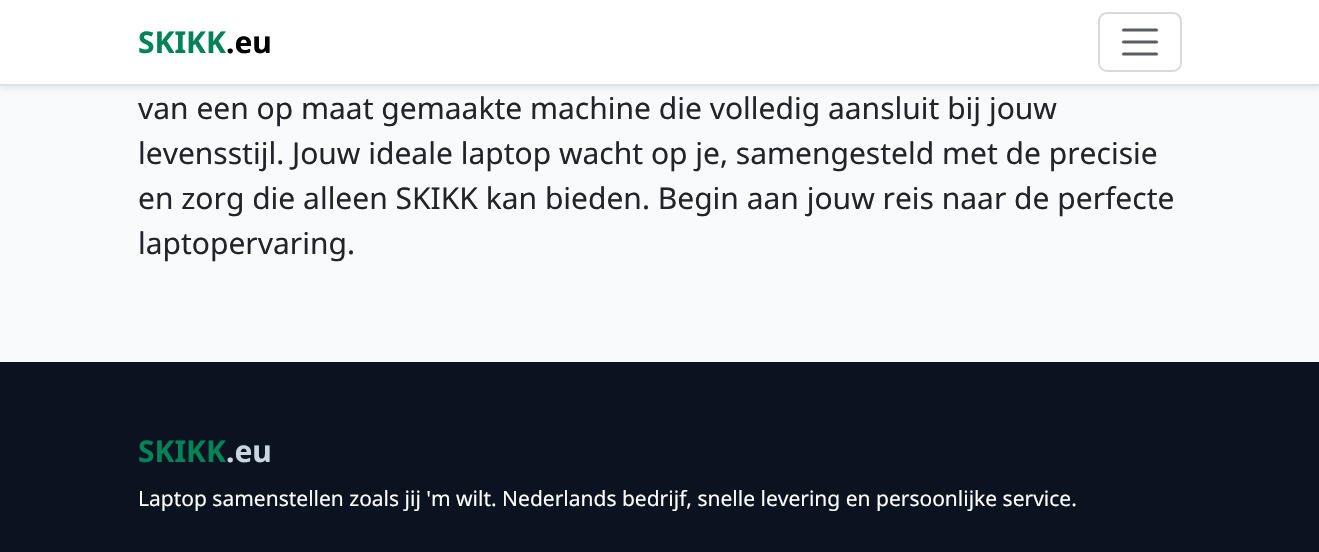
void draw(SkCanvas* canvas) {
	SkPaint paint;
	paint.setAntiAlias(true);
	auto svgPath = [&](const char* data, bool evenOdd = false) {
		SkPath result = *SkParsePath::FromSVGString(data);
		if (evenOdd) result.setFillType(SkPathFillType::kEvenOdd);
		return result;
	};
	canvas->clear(0xfff8fafc);
	paint.setColor(0x12000000);
	paint.setMaskFilter(SkMaskFilter::MakeBlur(kNormal_SkBlurStyle, 3));
	canvas->drawRect(SkRect::MakeXYWH(0, 3, 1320, 86), paint);
	paint.setMaskFilter(nullptr);
	paint.setColor(0xffffffff);
	canvas->drawRect(SkRect::MakeXYWH(0, 0, 1319, 84), paint);
	paint.setColor(0xffdee2e6);
	canvas->drawRect(SkRect::MakeXYWH(0, 84, 1319, 2), paint);
	SkFont f1(fontMgr->matchFamilyStyle("Noto Sans", SkFontStyle::Bold()), 30);
	f1.setSubpixel(true);
	paint.setColor(0xff008356);
	canvas->drawString("SKIKK", 138, 53, f1, paint);
	paint.setColor(0xff000000);
	canvas->drawString(".eu", 226, 53, f1, paint);
	paint.setStroke(true);
	paint.setStrokeWidth(2);
	paint.setColor(0xffd9d9d9);
	canvas->drawRoundRect(SkRect::MakeXYWH(1099, 13, 82, 58), 8, 8, paint);
	paint.setStrokeWidth(3);
	paint.setStrokeCap(SkPaint::kRound_Cap);
	paint.setColor(0xff595c5f);
	canvas->drawPath(svgPath("M1123.5 30H1156.5M1123.5 42H1156.5M1123.5 54H1156.5"), paint);
	SkFont f2(fontMgr->matchFamilyStyle("Noto Sans", SkFontStyle::Normal()), 30);
	f2.setSubpixel(true);
	paint.setStroke(false);
	paint.setColor(0xff212529);
	canvas->drawString("van een op maat gemaakte machine die volledig aansluit bij jouw", 138, 119, f2, paint);
	canvas->drawString("levensstijl. Jouw ideale laptop wacht op je, samengesteld met de precisie", 138, 164, f2, paint);
	canvas->drawString("en zorg die alleen SKIKK kan bieden. Begin aan jouw reis naar de perfecte", 138, 209, f2, paint);
	canvas->drawString("laptopervaring.", 138, 254, f2, paint);
	paint.setColor(0xff0b1220);
	canvas->drawRect(SkRect::MakeXYWH(0, 362, 1319, 190), paint);
	paint.setColor(0xff008356);
	canvas->drawString("SKIKK", 138, 462, f1, paint);
	paint.setColor(0xffcbd5e1);
	canvas->drawString(".eu", 226, 462, f1, paint);
	SkFont f3(fontMgr->matchFamilyStyle("Noto Sans", SkFontStyle::Normal()), 21);
	f3.setSubpixel(true);
	paint.setColor(0xffffffff);
	canvas->drawString("Laptop samenstellen zoals jij 'm wilt. Nederlands bedrijf, snelle levering en persoonlijke service.", 138, 506, f3, paint);
}
